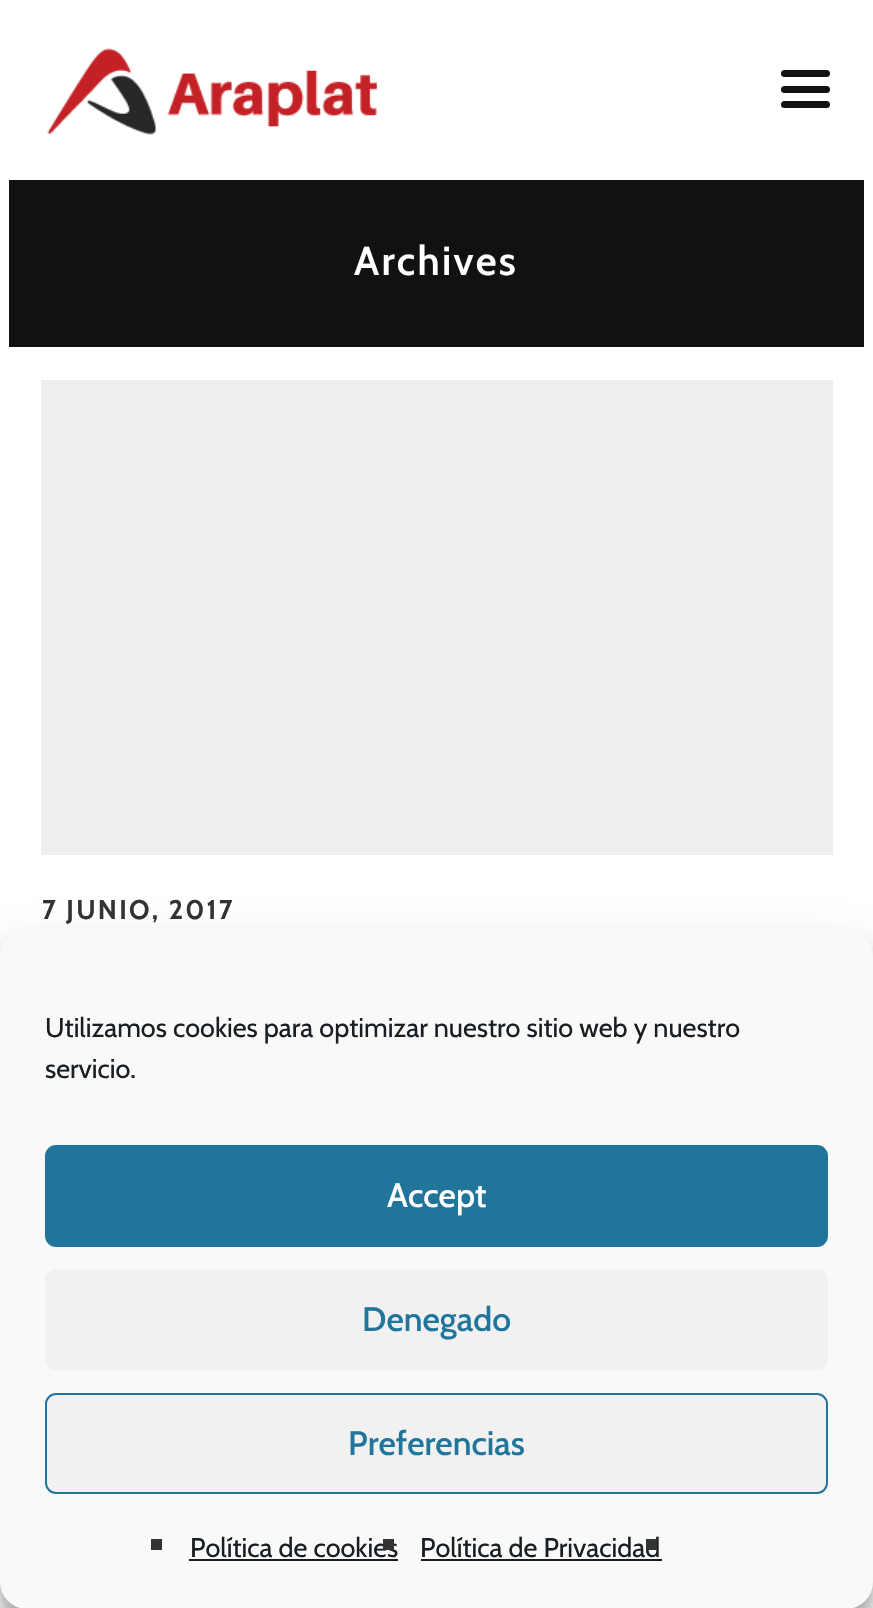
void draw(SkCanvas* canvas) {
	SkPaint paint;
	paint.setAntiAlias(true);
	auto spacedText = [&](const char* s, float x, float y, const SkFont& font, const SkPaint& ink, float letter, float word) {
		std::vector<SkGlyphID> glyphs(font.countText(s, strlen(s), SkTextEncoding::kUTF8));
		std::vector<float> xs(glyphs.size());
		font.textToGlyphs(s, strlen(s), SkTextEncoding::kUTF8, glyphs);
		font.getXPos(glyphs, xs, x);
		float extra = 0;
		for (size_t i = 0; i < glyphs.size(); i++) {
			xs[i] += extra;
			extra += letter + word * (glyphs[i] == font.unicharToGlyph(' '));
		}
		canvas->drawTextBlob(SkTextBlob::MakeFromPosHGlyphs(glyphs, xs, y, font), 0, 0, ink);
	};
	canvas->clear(0xffffffff);
	canvas->drawImageRect(SkImages::DeferredFromEncodedData(SkData::MakeFromFileName("img1.png")), SkRect::MakeXYWH(47, 48, 330, 87), SkSamplingOptions());
	paint.setColor(0xff111111);
	canvas->drawRoundRect(SkRect::MakeXYWH(781, 86, 49, 7), 3.5, 3.5, paint);
	canvas->drawRoundRect(SkRect::MakeXYWH(781, 70, 49, 7), 3.5, 3.5, paint);
	canvas->drawRoundRect(SkRect::MakeXYWH(781, 101, 49, 7), 3.5, 3.5, paint);
	canvas->drawRect(SkRect::MakeXYWH(9, 180, 855, 167), paint);
	SkFont f1(fontMgr->matchFamilyStyle("Cabin", SkFontStyle(600, SkFontStyle::kNormal_Width, SkFontStyle::kUpright_Slant)), 40.5);
	f1.setSubpixel(true);
	paint.setColor(0xffffffff);
	spacedText("Archives", 354, 275, f1, paint, 2.25, 0);
	paint.setColor(0xffeeeeee);
	canvas->drawRect(SkRect::MakeXYWH(41, 380, 792, 475), paint);
	SkFont f2(fontMgr->matchFamilyStyle("Cabin", SkFontStyle::Bold()), 27);
	f2.setSubpixel(true);
	paint.setColor(0xff333333);
	spacedText("7 JUNIO, 2017", 42, 919, f2, paint, 2.25, 0);
	paint.setColor(0x3b000000);
	paint.setMaskFilter(SkMaskFilter::MakeBlur(kNormal_SkBlurStyle, 7));
	canvas->drawRoundRect(SkRect::MakeXYWH(0, 943, 873, 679), 27, 27, paint);
	paint.setMaskFilter(nullptr);
	paint.setColor(0x30000000);
	paint.setMaskFilter(SkMaskFilter::MakeBlur(kNormal_SkBlurStyle, 22.5));
	canvas->drawRoundRect(SkRect::MakeXYWH(0, 952, 873, 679), 27, 27, paint);
	paint.setMaskFilter(nullptr);
	paint.setColor(0xfff9f9f9);
	canvas->drawRoundRect(SkRect::MakeXYWH(0, 929, 873, 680), 27, 27, paint);
	SkFont f3(fontMgr->matchFamilyStyle("Cabin", SkFontStyle::Normal()), 27);
	f3.setSubpixel(true);
	paint.setColor(0xff191e23);
	canvas->drawString("Utilizamos cookies para optimizar nuestro sitio web y nuestro", 45, 1037, f3, paint);
	canvas->drawString("servicio.", 45, 1078, f3, paint);
	paint.setColor(0xff21759b);
	canvas->drawRoundRect(SkRect::MakeXYWH(46, 1146, 781, 100), 10, 10, paint);
	paint.setStroke(true);
	paint.setStrokeWidth(2);
	canvas->drawRoundRect(SkRect::MakeXYWH(46, 1146, 781, 100), 10, 10, paint);
	SkFont f4(fontMgr->matchFamilyStyle("Cabin", SkFontStyle(500, SkFontStyle::kNormal_Width, SkFontStyle::kUpright_Slant)), 33.75);
	f4.setSubpixel(true);
	paint.setStroke(false);
	paint.setColor(0xffffffff);
	canvas->drawString("Accept", 387, 1207, f4, paint);
	paint.setColor(0xfff1f1f1);
	canvas->drawRoundRect(SkRect::MakeXYWH(45, 1269, 783, 101), 11, 11, paint);
	paint.setColor(0xff21759b);
	canvas->drawString("Denegado", 362, 1331, f4, paint);
	paint.setColor(0xfff1f1f1);
	canvas->drawRoundRect(SkRect::MakeXYWH(46, 1394, 781, 99), 10, 10, paint);
	paint.setStroke(true);
	paint.setColor(0xff21759b);
	canvas->drawRoundRect(SkRect::MakeXYWH(46, 1394, 781, 99), 10, 10, paint);
	paint.setStroke(false);
	canvas->drawString("Preferencias", 348, 1455, f4, paint);
	paint.setColor(0xff333333);
	canvas->drawRect(SkRect::MakeXYWH(151, 1539, 11, 11), paint);
	paint.setColor(0xff191e23);
	canvas->drawString("Política de cookies", 190, 1557, f3, paint);
	canvas->drawRect(SkRect::MakeXYWH(189, 1559, 209, 2), paint);
	paint.setColor(0xff333333);
	canvas->drawRect(SkRect::MakeXYWH(383, 1539, 11, 11), paint);
	paint.setColor(0xff191e23);
	canvas->drawString("Política de Privacidad", 420, 1557, f3, paint);
	canvas->drawRect(SkRect::MakeXYWH(421, 1559, 241, 2), paint);
	paint.setColor(0xff333333);
	canvas->drawRect(SkRect::MakeXYWH(646, 1539, 11, 11), paint);
}
